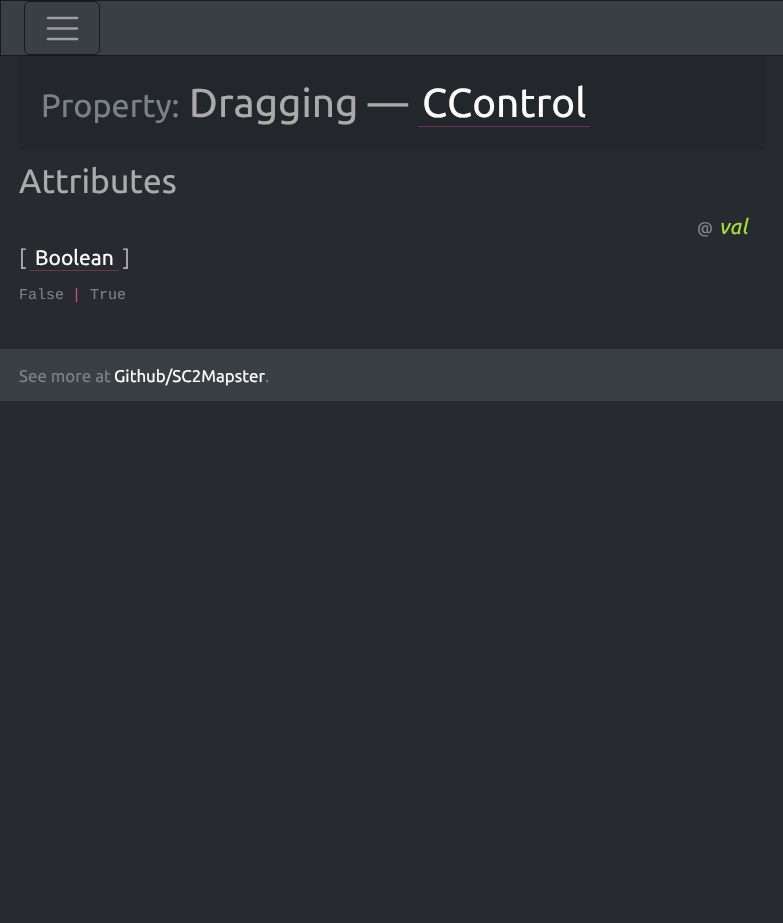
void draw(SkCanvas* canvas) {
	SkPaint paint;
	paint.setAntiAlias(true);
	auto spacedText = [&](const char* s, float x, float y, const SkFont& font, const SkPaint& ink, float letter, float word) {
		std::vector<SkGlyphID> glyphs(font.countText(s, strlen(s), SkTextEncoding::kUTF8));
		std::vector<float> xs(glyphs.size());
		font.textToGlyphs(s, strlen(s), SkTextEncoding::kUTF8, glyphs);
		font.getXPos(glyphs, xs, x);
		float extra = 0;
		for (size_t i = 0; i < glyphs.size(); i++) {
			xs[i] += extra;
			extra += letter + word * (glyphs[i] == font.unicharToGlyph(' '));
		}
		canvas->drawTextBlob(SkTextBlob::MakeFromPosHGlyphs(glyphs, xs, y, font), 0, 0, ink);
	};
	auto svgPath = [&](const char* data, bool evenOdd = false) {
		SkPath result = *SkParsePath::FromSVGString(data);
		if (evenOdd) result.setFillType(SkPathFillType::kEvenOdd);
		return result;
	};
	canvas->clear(0xff272b30);
	paint.setColor(0xff3a3f44);
	canvas->drawRect(SkRect::MakeXYWH(0.5, 0.5, 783, 55), paint);
	paint.setStroke(true);
	paint.setStrokeWidth(1);
	paint.setColor(0xff17191b);
	canvas->drawRect(SkRect::MakeXYWH(0.5, 0.5, 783, 55), paint);
	canvas->drawRoundRect(SkRect::MakeXYWH(24.5, 1.5, 75, 53), 5.5, 5.5, paint);
	paint.setStrokeWidth(2.6);
	paint.setStrokeCap(SkPaint::kRound_Cap);
	paint.setColor(0xff9d9fa2);
	canvas->drawPath(svgPath("M48 18H77M48 28.5H77M48 39H77"), paint);
	paint.setStroke(false);
	paint.setColor(0xff23272b);
	canvas->drawRect(SkRect::MakeXYWH(19, 56, 746, 94), paint);
	SkFont f1(fontMgr->matchFamilyStyle("Ubuntu", SkFontStyle::Normal()), 32.5);
	f1.setSubpixel(true);
	paint.setColor(0xff7a8288);
	canvas->drawString("Property:", 41, 117, f1, paint);
	SkFont f2(fontMgr->matchFamilyStyle("Ubuntu", SkFontStyle::Normal()), 40.5);
	f2.setSubpixel(true);
	paint.setColor(0xffaaaaaa);
	canvas->drawString("Dragging —", 189, 117, f2, paint);
	paint.setColor(0xffffffff);
	canvas->drawString("CControl", 422, 117, f2, paint);
	paint.setColor(0xff723052);
	canvas->drawRect(SkRect::MakeXYWH(418, 126, 172, 1), paint);
	SkFont f3(fontMgr->matchFamilyStyle("Ubuntu", SkFontStyle::Normal()), 33.75);
	f3.setSubpixel(true);
	paint.setColor(0xffaaaaaa);
	canvas->drawString("Attributes", 19, 193, f3, paint);
	SkFont f4(fontMgr->matchFamilyStyle("Ubuntu", SkFontStyle::Normal()), 16.9);
	f4.setSubpixel(true);
	paint.setColor(0xff7a8288);
	spacedText("@", 697, 234, f4, paint, 0.5, 0);
	SkFont f5(fontMgr->matchFamilyStyle("Ubuntu", SkFontStyle::Italic()), 21);
	f5.setSubpixel(true);
	paint.setColor(0xffa6e22e);
	spacedText("val", 719, 234, f5, paint, 0.5, 0);
	SkFont f6(fontMgr->matchFamilyStyle("Ubuntu", SkFontStyle::Normal()), 21);
	f6.setSubpixel(true);
	paint.setColor(0xffaaaaaa);
	canvas->drawString("[", 19, 265, f6, paint);
	paint.setColor(0xffffffff);
	canvas->drawString("Boolean", 35, 265, f6, paint);
	paint.setColor(0xff743355);
	canvas->drawRect(SkRect::MakeXYWH(30, 270, 89, 1), paint);
	paint.setColor(0xffaaaaaa);
	canvas->drawString("]", 123, 265, f6, paint);
	SkFont f7(fontMgr->matchFamilyStyle("Liberation Mono", SkFontStyle::Normal()), 15);
	f7.setSubpixel(true);
	paint.setColor(0xff7a8288);
	canvas->drawString("False", 19, 299, f7, paint);
	paint.setColor(0xffe83e8c);
	canvas->drawString("|", 72, 299, f7, paint);
	paint.setColor(0xff7a8288);
	canvas->drawString("True", 90, 299, f7, paint);
	paint.setColor(0xff3a3f44);
	canvas->drawRect(SkRect::MakeXYWH(0, 349, 783, 52), paint);
	paint.setColor(0xff7a8288);
	canvas->drawString("See more at", 19, 382, f4, paint);
	paint.setColor(0xffffffff);
	canvas->drawString("Github/SC2Mapster", 114, 382, f4, paint);
	paint.setColor(0xff7a8288);
	canvas->drawString(".", 265, 382, f4, paint);
}
